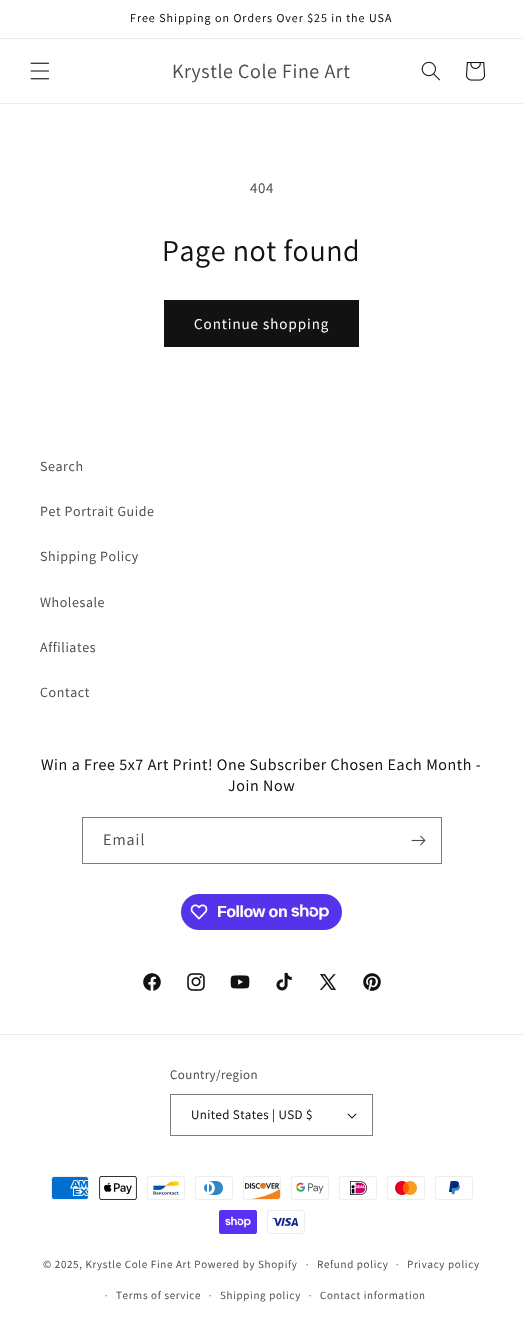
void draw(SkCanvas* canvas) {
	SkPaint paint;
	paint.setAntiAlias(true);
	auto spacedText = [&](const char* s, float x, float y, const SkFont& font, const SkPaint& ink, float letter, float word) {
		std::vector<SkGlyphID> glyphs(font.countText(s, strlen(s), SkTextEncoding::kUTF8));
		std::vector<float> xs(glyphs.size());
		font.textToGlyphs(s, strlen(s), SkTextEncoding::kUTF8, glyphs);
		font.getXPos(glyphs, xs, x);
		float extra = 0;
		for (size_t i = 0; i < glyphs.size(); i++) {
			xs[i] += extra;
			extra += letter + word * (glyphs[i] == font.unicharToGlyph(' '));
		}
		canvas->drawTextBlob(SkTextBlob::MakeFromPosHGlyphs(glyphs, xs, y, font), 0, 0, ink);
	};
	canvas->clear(0xffffffff);
	paint.setColor(0xffececec);
	canvas->drawRect(SkRect::MakeXYWH(0, 38, 523, 1), paint);
	SkFont f1(fontMgr->matchFamilyStyle("Assistant", SkFontStyle::Normal()), 12);
	f1.setSubpixel(true);
	paint.setColor(0xff121212);
	spacedText("Free Shipping on Orders Over $25 in the USA", 130, 22, f1, paint, 1, 0);
	paint.setColor(0xffececec);
	canvas->drawRect(SkRect::MakeXYWH(0, 103, 523, 1), paint);
	canvas->drawImageRect(SkImages::DeferredFromEncodedData(SkData::MakeFromFileName("img1.png")), SkRect::MakeXYWH(30, 62, 20, 18), SkSamplingOptions());
	SkFont f2(fontMgr->matchFamilyStyle("Assistant", SkFontStyle::Normal()), 20);
	f2.setSubpixel(true);
	paint.setColor(0xff4d4d4d);
	spacedText("Krystle Cole Fine Art", 172, 78, f2, paint, 0.6, 0);
	canvas->drawImageRect(SkImages::DeferredFromEncodedData(SkData::MakeFromFileName("img2.png")), SkRect::MakeXYWH(421, 61, 19, 20), SkSamplingOptions());
	canvas->drawImageRect(SkImages::DeferredFromEncodedData(SkData::MakeFromFileName("img3.png")), SkRect::MakeXYWH(466, 62, 20, 19), SkSamplingOptions());
	SkFont f3(fontMgr->matchFamilyStyle("Assistant", SkFontStyle::Normal()), 15);
	f3.setSubpixel(true);
	spacedText("404", 250, 193, f3, paint, 0.6, 0);
	SkFont f4(fontMgr->matchFamilyStyle("Assistant", SkFontStyle::Normal()), 30);
	f4.setSubpixel(true);
	paint.setColor(0xff121212);
	spacedText("Page not found", 162, 261, f4, paint, 0.6, 0);
	canvas->drawRect(SkRect::MakeXYWH(164, 300, 195, 47), paint);
	paint.setColor(0xffffffff);
	spacedText("Continue shopping", 194, 329, f3, paint, 1, 0);
	SkFont f5(fontMgr->matchFamilyStyle("Assistant", SkFontStyle::Normal()), 14);
	f5.setSubpixel(true);
	paint.setColor(0xff4d4d4d);
	spacedText("Search", 40, 471, f5, paint, 0.6, 0);
	spacedText("Pet Portrait Guide", 40, 516, f5, paint, 0.6, 0);
	spacedText("Shipping Policy", 40, 561, f5, paint, 0.6, 0);
	spacedText("Wholesale", 40, 607, f5, paint, 0.6, 0);
	spacedText("Affiliates", 40, 652, f5, paint, 0.6, 0);
	spacedText("Contact", 40, 697, f5, paint, 0.6, 0);
	SkFont f6(fontMgr->matchFamilyStyle("Assistant", SkFontStyle::Normal()), 16);
	f6.setSubpixel(true);
	paint.setColor(0xff121212);
	spacedText("Win a Free 5x7 Art Print! One Subscriber Chosen Each Month -", 41, 770, f6, paint, 0.6, 0);
	spacedText("Join Now", 228, 791, f6, paint, 0.6, 0);
	paint.setStroke(true);
	paint.setStrokeWidth(1);
	paint.setColor(0xff7d7d7d);
	canvas->drawRect(SkRect::MakeXYWH(82.5, 817.5, 359, 46), paint);
	paint.setStroke(false);
	paint.setColor(0xff4d4d4d);
	spacedText("Email", 103, 845, f6, paint, 1, 0);
	canvas->drawImageRect(SkImages::DeferredFromEncodedData(SkData::MakeFromFileName("img4.png")), SkRect::MakeXYWH(411, 835, 15, 11), SkSamplingOptions());
	paint.setColor(0xff5433eb);
	canvas->drawRoundRect(SkRect::MakeXYWH(181, 894, 161, 36), 18, 18, paint);
	canvas->drawImageRect(SkImages::DeferredFromEncodedData(SkData::MakeFromFileName("img5.png")), SkRect::MakeXYWH(190, 904, 18, 16), SkSamplingOptions());
	SkFont f7(fontMgr->matchFamilyStyle("Liberation Sans", SkFontStyle::Bold()), 16);
	f7.setSubpixel(true);
	paint.setColor(0xffffffff);
	spacedText("Follow on", 217, 917, f7, paint, -0.5, 0);
	canvas->drawImageRect(SkImages::DeferredFromEncodedData(SkData::MakeFromFileName("img6.png")), SkRect::MakeXYWH(291, 904, 38, 16), SkSamplingOptions());
	canvas->drawImageRect(SkImages::DeferredFromEncodedData(SkData::MakeFromFileName("img7.png")), SkRect::MakeXYWH(143, 973, 18, 18), SkSamplingOptions());
	canvas->drawImageRect(SkImages::DeferredFromEncodedData(SkData::MakeFromFileName("img8.png")), SkRect::MakeXYWH(187, 973, 18, 18), SkSamplingOptions());
	canvas->drawImageRect(SkImages::DeferredFromEncodedData(SkData::MakeFromFileName("img9.png")), SkRect::MakeXYWH(230, 975, 20, 14), SkSamplingOptions());
	canvas->drawImageRect(SkImages::DeferredFromEncodedData(SkData::MakeFromFileName("img10.png")), SkRect::MakeXYWH(276, 972, 16, 19), SkSamplingOptions());
	canvas->drawImageRect(SkImages::DeferredFromEncodedData(SkData::MakeFromFileName("img11.png")), SkRect::MakeXYWH(319, 974, 17, 16), SkSamplingOptions());
	canvas->drawImageRect(SkImages::DeferredFromEncodedData(SkData::MakeFromFileName("img12.png")), SkRect::MakeXYWH(363, 973, 18, 18), SkSamplingOptions());
	paint.setColor(0xffececec);
	canvas->drawRect(SkRect::MakeXYWH(0, 1034, 523, 1), paint);
	SkFont f8(fontMgr->matchFamilyStyle("Assistant", SkFontStyle::Normal()), 13);
	f8.setSubpixel(true);
	paint.setColor(0xff4d4d4d);
	spacedText("Country/region", 170, 1079, f8, paint, 0.4, 0);
	canvas->drawImageRect(SkImages::DeferredFromEncodedData(SkData::MakeFromFileName("img13.png")), SkRect::MakeXYWH(347, 1113, 10, 6), SkSamplingOptions());
	paint.setStroke(true);
	paint.setColor(0xff7d7d7d);
	canvas->drawRect(SkRect::MakeXYWH(170.5, 1094.5, 202, 41), paint);
	paint.setStroke(false);
	paint.setColor(0xff121212);
	spacedText("United States | USD $", 191, 1119, f8, paint, 0.4, 0);
	canvas->drawImageRect(SkImages::DeferredFromEncodedData(SkData::MakeFromFileName("img14.png")), SkRect::MakeXYWH(51, 1176, 38, 24), SkSamplingOptions());
	canvas->drawImageRect(SkImages::DeferredFromEncodedData(SkData::MakeFromFileName("img15.png")), SkRect::MakeXYWH(99, 1176, 38, 24), SkSamplingOptions());
	canvas->drawImageRect(SkImages::DeferredFromEncodedData(SkData::MakeFromFileName("img16.png")), SkRect::MakeXYWH(147, 1176, 38, 24), SkSamplingOptions());
	canvas->drawImageRect(SkImages::DeferredFromEncodedData(SkData::MakeFromFileName("img17.png")), SkRect::MakeXYWH(195, 1176, 38, 24), SkSamplingOptions());
	canvas->drawImageRect(SkImages::DeferredFromEncodedData(SkData::MakeFromFileName("img18.png")), SkRect::MakeXYWH(243, 1176, 38, 24), SkSamplingOptions());
	canvas->drawImageRect(SkImages::DeferredFromEncodedData(SkData::MakeFromFileName("img19.png")), SkRect::MakeXYWH(291, 1176, 38, 24), SkSamplingOptions());
	canvas->drawImageRect(SkImages::DeferredFromEncodedData(SkData::MakeFromFileName("img20.png")), SkRect::MakeXYWH(339, 1176, 38, 24), SkSamplingOptions());
	canvas->drawImageRect(SkImages::DeferredFromEncodedData(SkData::MakeFromFileName("img21.png")), SkRect::MakeXYWH(387, 1176, 38, 24), SkSamplingOptions());
	canvas->drawImageRect(SkImages::DeferredFromEncodedData(SkData::MakeFromFileName("img22.png")), SkRect::MakeXYWH(435, 1176, 38, 24), SkSamplingOptions());
	canvas->drawImageRect(SkImages::DeferredFromEncodedData(SkData::MakeFromFileName("img23.png")), SkRect::MakeXYWH(219, 1210, 38, 24), SkSamplingOptions());
	canvas->drawImageRect(SkImages::DeferredFromEncodedData(SkData::MakeFromFileName("img24.png")), SkRect::MakeXYWH(267, 1210, 38, 24), SkSamplingOptions());
	SkFont f9(fontMgr->matchFamilyStyle("Assistant", SkFontStyle::Normal()), 11);
	f9.setSubpixel(true);
	paint.setColor(0xff4d4d4d);
	spacedText("© 2025, Krystle Cole Fine Art Powered by Shopify", 43, 1268, f9, paint, 0.7, 0);
	SkFont f10(fontMgr->matchFamilyStyle("Assistant", SkFontStyle::Normal()), 10);
	f10.setSubpixel(true);
	spacedText("·", 306, 1268, f10, paint, 0.7, 0);
	spacedText("Refund policy", 317, 1268, f9, paint, 0.7, 0);
	spacedText("·", 396, 1268, f10, paint, 0.7, 0);
	spacedText("Privacy policy", 407, 1268, f9, paint, 0.7, 0);
	spacedText("·", 105, 1299, f10, paint, 0.7, 0);
	spacedText("Terms of service", 116, 1299, f9, paint, 0.7, 0);
	spacedText("·", 209, 1299, f10, paint, 0.7, 0);
	spacedText("Shipping policy", 220, 1299, f9, paint, 0.7, 0);
	spacedText("·", 309, 1299, f10, paint, 0.7, 0);
	spacedText("Contact information", 320, 1299, f9, paint, 0.7, 0);
}
